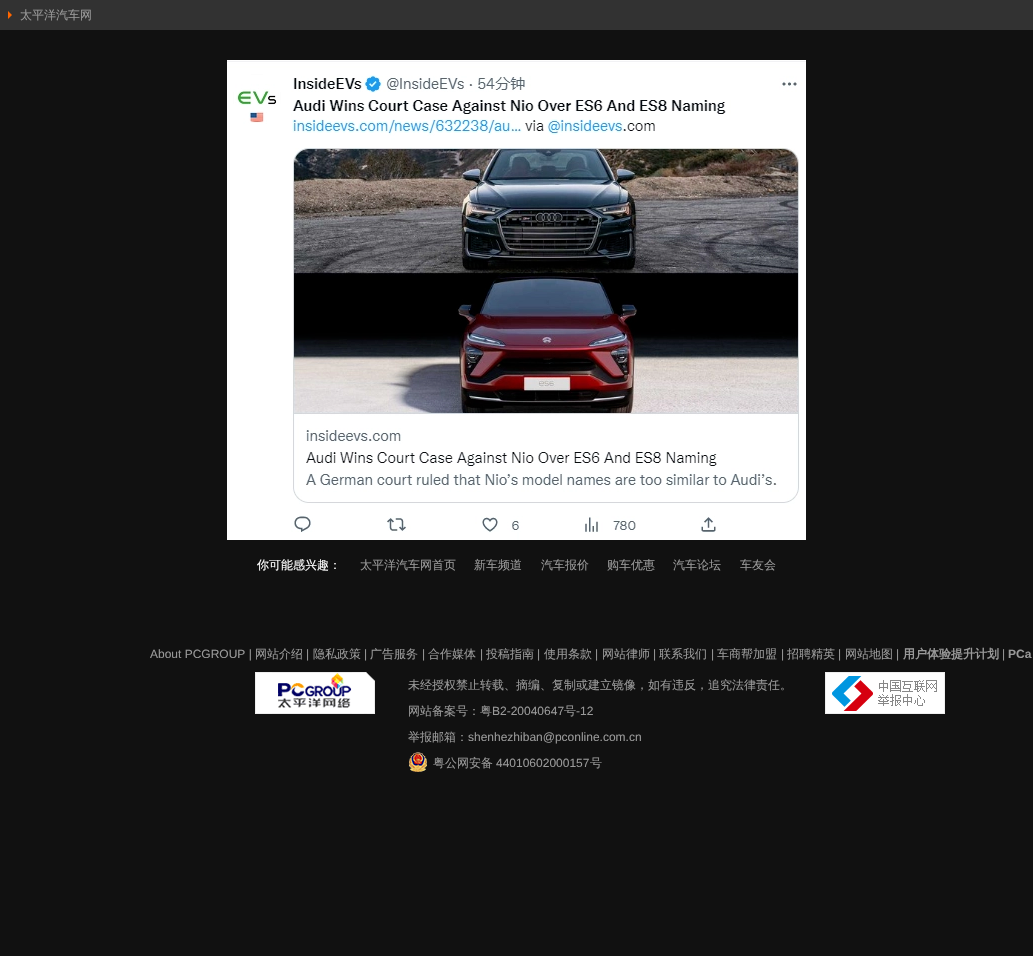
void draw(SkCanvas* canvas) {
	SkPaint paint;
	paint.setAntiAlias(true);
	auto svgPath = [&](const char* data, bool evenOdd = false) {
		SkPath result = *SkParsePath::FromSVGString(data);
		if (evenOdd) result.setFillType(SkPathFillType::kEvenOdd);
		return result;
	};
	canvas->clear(0xff111111);
	paint.setColor(0xff323232);
	canvas->drawRect(SkRect::MakeXYWH(0, 0, 1033, 30), paint);
	paint.setColor(0xffff6600);
	canvas->drawPath(svgPath("M8 19V11L12 15Z"), paint);
	SkFont f1(fontMgr->matchFamilyStyle("WenQuanYi Zen Hei", SkFontStyle(500, SkFontStyle::kNormal_Width, SkFontStyle::kUpright_Slant)), 12);
	f1.setSubpixel(true);
	paint.setColor(0xff999999);
	canvas->drawString("太平洋汽车网", 20, 19, f1, paint);
	canvas->drawImageRect(SkImages::DeferredFromEncodedData(SkData::MakeFromFileName("img1.png")), SkRect::MakeXYWH(227, 60, 579, 480), SkSamplingOptions());
	paint.setColor(0xffffffff);
	canvas->drawString("你可能感兴趣：", 257, 569, f1, paint);
	paint.setColor(0xff999999);
	canvas->drawString("太平洋汽车网首页", 360, 569, f1, paint);
	canvas->drawString("新车频道", 474, 569, f1, paint);
	canvas->drawString("汽车报价", 541, 569, f1, paint);
	canvas->drawString("购车优惠", 607, 569, f1, paint);
	canvas->drawString("汽车论坛", 673, 569, f1, paint);
	canvas->drawString("车友会", 740, 569, f1, paint);
	SkFont f2(fontMgr->matchFamilyStyle("Liberation Sans", SkFontStyle::Normal()), 12);
	f2.setSubpixel(true);
	canvas->drawString("About PCGROUP |", 150, 658, f2, paint);
	canvas->drawString("网站介绍", 255, 658, f1, paint);
	canvas->drawString("|", 306, 658, f2, paint);
	canvas->drawString("隐私政策", 313, 658, f1, paint);
	canvas->drawString("|", 364, 658, f2, paint);
	canvas->drawString("广告服务", 370, 658, f1, paint);
	canvas->drawString("|", 422, 658, f2, paint);
	canvas->drawString("合作媒体", 428, 658, f1, paint);
	canvas->drawString("|", 480, 658, f2, paint);
	canvas->drawString("投稿指南", 486, 658, f1, paint);
	canvas->drawString("|", 537, 658, f2, paint);
	canvas->drawString("使用条款", 544, 658, f1, paint);
	canvas->drawString("|", 595, 658, f2, paint);
	canvas->drawString("网站律师", 602, 658, f1, paint);
	canvas->drawString("|", 653, 658, f2, paint);
	canvas->drawString("联系我们", 659, 658, f1, paint);
	canvas->drawString("|", 711, 658, f2, paint);
	canvas->drawString("车商帮加盟", 717, 658, f1, paint);
	canvas->drawString("|", 781, 658, f2, paint);
	canvas->drawString("招聘精英", 787, 658, f1, paint);
	canvas->drawString("|", 838, 658, f2, paint);
	canvas->drawString("网站地图", 845, 658, f1, paint);
	canvas->drawString("|", 896, 658, f2, paint);
	SkFont f3(fontMgr->matchFamilyStyle("WenQuanYi Zen Hei", SkFontStyle::Bold()), 12);
	f3.setSubpixel(true);
	canvas->drawString("用户体验提升计划", 903, 658, f3, paint);
	canvas->drawString("|", 1002, 658, f2, paint);
	SkFont f4(fontMgr->matchFamilyStyle("Liberation Sans", SkFontStyle::Bold()), 12);
	f4.setSubpixel(true);
	canvas->drawString("PCa", 1008, 658, f4, paint);
	canvas->drawImageRect(SkImages::DeferredFromEncodedData(SkData::MakeFromFileName("img2.png")), SkRect::MakeXYWH(255, 672, 120, 42), SkSamplingOptions());
	canvas->drawString("未经授权禁止转载、摘编、复制或建立镜像，如有违反，追究法律责任。", 408, 689, f1, paint);
	canvas->drawString("网站备案号：粤", 408, 715, f1, paint);
	canvas->drawString("B2-20040647", 492, 715, f2, paint);
	canvas->drawString("号", 564, 715, f1, paint);
	canvas->drawString("-12", 576, 715, f2, paint);
	canvas->drawString("举报邮箱：", 408, 741, f1, paint);
	canvas->drawString("shenhezhiban@pconline.com.cn", 468, 741, f2, paint);
	canvas->drawImageRect(SkImages::DeferredFromEncodedData(SkData::MakeFromFileName("img3.png")), SkRect::MakeXYWH(409, 752, 18, 20), SkSamplingOptions());
	canvas->drawString("粤公网安备", 433, 767, f1, paint);
	canvas->drawString("44010602000157", 496, 767, f2, paint);
	canvas->drawString("号", 590, 767, f1, paint);
	canvas->drawImageRect(SkImages::DeferredFromEncodedData(SkData::MakeFromFileName("img4.png")), SkRect::MakeXYWH(825, 672, 120, 42), SkSamplingOptions());
}
